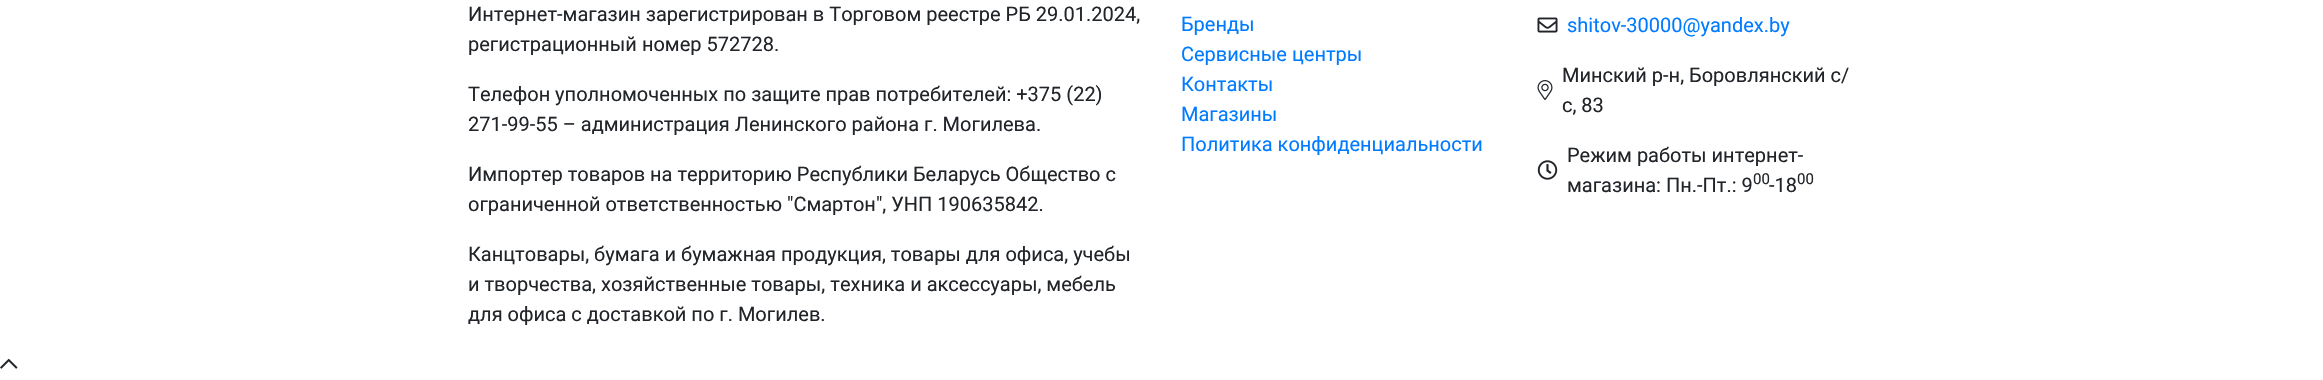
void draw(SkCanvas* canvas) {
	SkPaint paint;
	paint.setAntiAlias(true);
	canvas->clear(0xffffffff);
	SkFont f1(fontMgr->matchFamilyStyle("Roboto", SkFontStyle::Normal()), 20);
	f1.setSubpixel(true);
	paint.setColor(0xff212529);
	canvas->drawString("Интернет-магазин зарегистрирован в Торговом реестре РБ 29.01.2024,", 468, 21, f1, paint);
	canvas->drawString("регистрационный номер 572728.", 468, 51, f1, paint);
	canvas->drawString("Телефон уполномоченных по защите прав потребителей: +375 (22)", 468, 101, f1, paint);
	canvas->drawString("271-99-55 – администрация Ленинского района г. Могилева.", 468, 131, f1, paint);
	canvas->drawString("Импортер товаров на территорию Республики Беларусь Общество с", 468, 181, f1, paint);
	canvas->drawString("ограниченной ответственностью \"Смартон\", УНП 190635842.", 468, 211, f1, paint);
	canvas->drawString("Канцтовары, бумага и бумажная продукция, товары для офиса, учебы", 468, 261, f1, paint);
	canvas->drawString("и творчества, хозяйственные товары, техника и аксессуары, мебель", 468, 291, f1, paint);
	canvas->drawString("для офиса с доставкой по г. Могилев.", 468, 321, f1, paint);
	paint.setColor(0xff007bff);
	canvas->drawString("Бренды", 1181, 31, f1, paint);
	canvas->drawString("Сервисные центры", 1181, 61, f1, paint);
	canvas->drawString("Контакты", 1181, 91, f1, paint);
	canvas->drawString("Магазины", 1181, 121, f1, paint);
	canvas->drawString("Политика конфиденциальности", 1181, 151, f1, paint);
	canvas->drawImageRect(SkImages::DeferredFromEncodedData(SkData::MakeFromFileName("img1.png")), SkRect::MakeXYWH(1537, 17, 21, 16), SkSamplingOptions());
	canvas->drawString("shitov-30000@yandex.by", 1567, 32, f1, paint);
	canvas->drawImageRect(SkImages::DeferredFromEncodedData(SkData::MakeFromFileName("img2.png")), SkRect::MakeXYWH(1537, 80, 16, 20), SkSamplingOptions());
	paint.setColor(0xff212529);
	canvas->drawString("Минский р-н, Боровлянский с/", 1562, 82, f1, paint);
	canvas->drawString("с, 83", 1562, 112, f1, paint);
	canvas->drawImageRect(SkImages::DeferredFromEncodedData(SkData::MakeFromFileName("img3.png")), SkRect::MakeXYWH(1537, 160, 21, 20), SkSamplingOptions());
	canvas->drawString("Режим работы интернет-", 1567, 162, f1, paint);
	canvas->drawString("магазина: Пн.-Пт.: 9", 1567, 192, f1, paint);
	SkFont f2(fontMgr->matchFamilyStyle("Roboto", SkFontStyle::Normal()), 15);
	f2.setSubpixel(true);
	canvas->drawString("00", 1753, 184, f2, paint);
	canvas->drawString("-18", 1769, 192, f1, paint);
	canvas->drawString("00", 1797, 184, f2, paint);
	canvas->drawImageRect(SkImages::DeferredFromEncodedData(SkData::MakeFromFileName("img4.png")), SkRect::MakeXYWH(0, 358, 18, 11), SkSamplingOptions());
}
